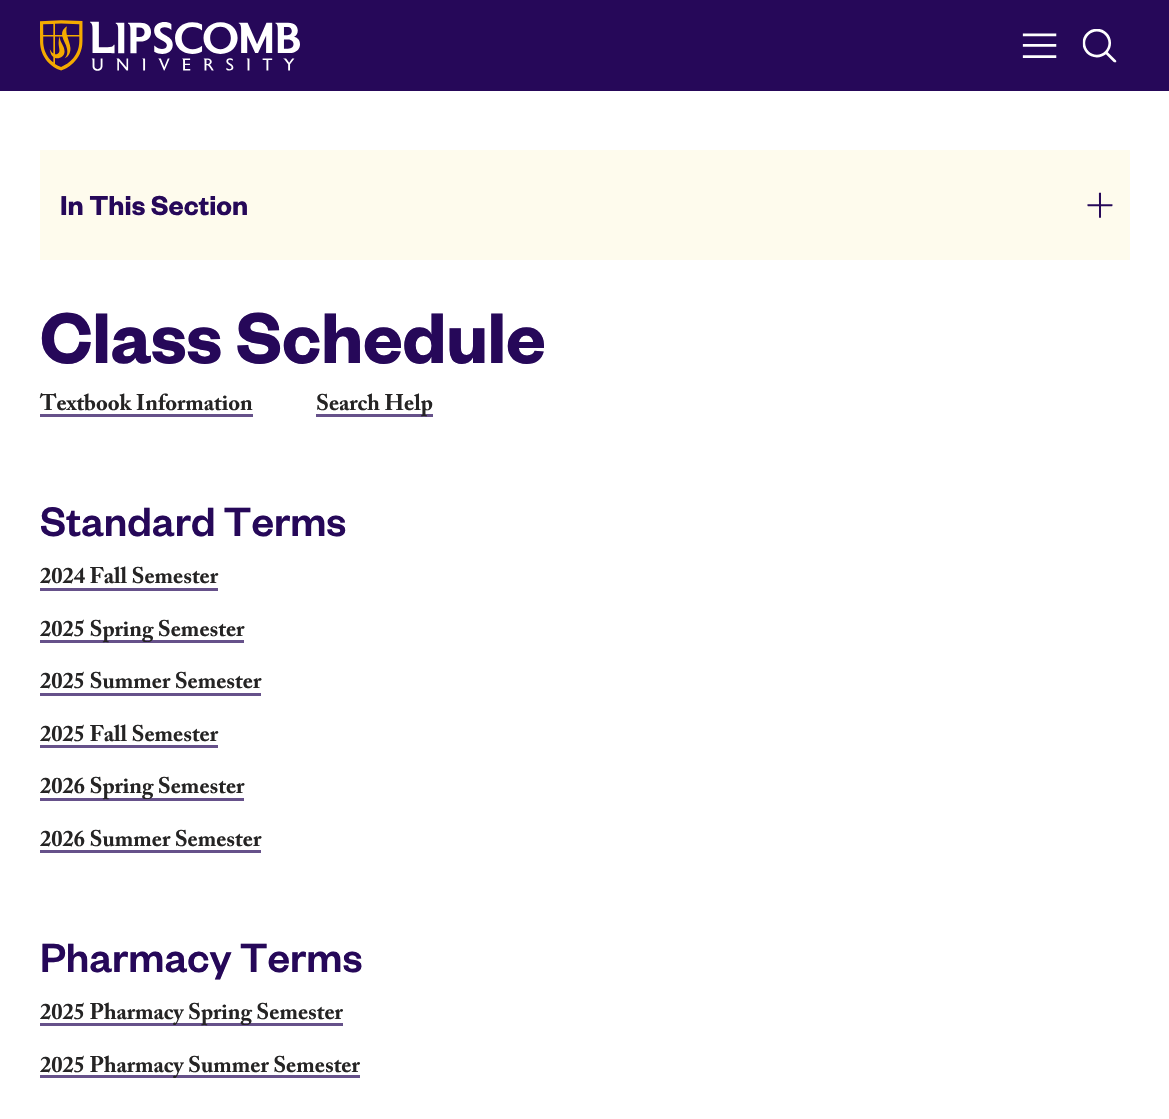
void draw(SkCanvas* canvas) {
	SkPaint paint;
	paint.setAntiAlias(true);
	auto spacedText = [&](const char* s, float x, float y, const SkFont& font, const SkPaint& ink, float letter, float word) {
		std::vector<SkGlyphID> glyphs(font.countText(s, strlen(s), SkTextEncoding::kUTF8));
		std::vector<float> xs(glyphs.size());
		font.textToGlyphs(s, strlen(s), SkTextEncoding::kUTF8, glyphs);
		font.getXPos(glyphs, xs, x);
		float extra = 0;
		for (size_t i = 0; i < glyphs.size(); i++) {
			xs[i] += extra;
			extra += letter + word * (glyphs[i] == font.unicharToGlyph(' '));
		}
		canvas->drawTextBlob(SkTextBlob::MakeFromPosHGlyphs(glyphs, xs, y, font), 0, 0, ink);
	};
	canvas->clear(0xffffffff);
	paint.setColor(0xff260859);
	canvas->drawRect(SkRect::MakeXYWH(0, 0, 1169, 91), paint);
	canvas->drawImageRect(SkImages::DeferredFromEncodedData(SkData::MakeFromFileName("img1.png")), SkRect::MakeXYWH(40, 20, 260, 51), SkSamplingOptions());
	canvas->drawImageRect(SkImages::DeferredFromEncodedData(SkData::MakeFromFileName("img2.png")), SkRect::MakeXYWH(1022, 33, 35, 25), SkSamplingOptions());
	canvas->drawImageRect(SkImages::DeferredFromEncodedData(SkData::MakeFromFileName("img3.png")), SkRect::MakeXYWH(1082, 29, 35, 34), SkSamplingOptions());
	paint.setColor(0xfffefbed);
	canvas->drawRect(SkRect::MakeXYWH(40, 150, 1090, 110), paint);
	SkFont f1(fontMgr->matchFamilyStyle("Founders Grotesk", SkFontStyle(600, SkFontStyle::kNormal_Width, SkFontStyle::kUpright_Slant)), 30);
	f1.setSubpixel(true);
	paint.setColor(0xff260859);
	canvas->drawString("In This Section", 60, 215, f1, paint);
	canvas->drawImageRect(SkImages::DeferredFromEncodedData(SkData::MakeFromFileName("img4.png")), SkRect::MakeXYWH(1087, 192, 26, 26), SkSamplingOptions());
	SkFont f2(fontMgr->matchFamilyStyle("Founders Grotesk", SkFontStyle(600, SkFontStyle::kNormal_Width, SkFontStyle::kUpright_Slant)), 78.5);
	f2.setSubpixel(true);
	spacedText("Class Schedule", 40, 363, f2, paint, -0.3, 0);
	SkFont f3(fontMgr->matchFamilyStyle("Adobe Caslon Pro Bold", SkFontStyle::Bold()), 22.5);
	f3.setSubpixel(true);
	paint.setColor(0xff252424);
	canvas->drawString("Textbook Information", 40, 410, f3, paint);
	paint.setColor(0xff66518a);
	canvas->drawRect(SkRect::MakeXYWH(40, 414, 213, 3), paint);
	canvas->drawRect(SkRect::MakeXYWH(316, 414, 117, 3), paint);
	paint.setColor(0xff252424);
	canvas->drawString("Search Help", 316, 410, f3, paint);
	SkFont f4(fontMgr->matchFamilyStyle("Founders Grotesk", SkFontStyle(500, SkFontStyle::kNormal_Width, SkFontStyle::kUpright_Slant)), 45);
	f4.setSubpixel(true);
	paint.setColor(0xff260859);
	canvas->drawString("Standard Terms", 40, 536, f4, paint);
	paint.setColor(0xff252424);
	canvas->drawString("2024 Fall Semester", 40, 583, f3, paint);
	paint.setColor(0xff66518a);
	canvas->drawRect(SkRect::MakeXYWH(40, 588, 178, 3), paint);
	canvas->drawRect(SkRect::MakeXYWH(40, 640, 204, 3), paint);
	paint.setColor(0xff252424);
	canvas->drawString("2025 Spring Semester", 40, 636, f3, paint);
	canvas->drawString("2025 Summer Semester", 40, 688, f3, paint);
	paint.setColor(0xff66518a);
	canvas->drawRect(SkRect::MakeXYWH(40, 693, 221, 3), paint);
	paint.setColor(0xff252424);
	canvas->drawString("2025 Fall Semester", 40, 741, f3, paint);
	paint.setColor(0xff66518a);
	canvas->drawRect(SkRect::MakeXYWH(40, 745, 178, 3), paint);
	canvas->drawRect(SkRect::MakeXYWH(40, 798, 204, 3), paint);
	paint.setColor(0xff252424);
	canvas->drawString("2026 Spring Semester", 40, 793, f3, paint);
	canvas->drawString("2026 Summer Semester", 40, 846, f3, paint);
	paint.setColor(0xff66518a);
	canvas->drawRect(SkRect::MakeXYWH(40, 850, 221, 3), paint);
	paint.setColor(0xff260859);
	canvas->drawString("Pharmacy Terms", 40, 972, f4, paint);
	paint.setColor(0xff66518a);
	canvas->drawRect(SkRect::MakeXYWH(40, 1023, 303, 3), paint);
	paint.setColor(0xff252424);
	canvas->drawString("2025 Pharmacy Spring Semester", 40, 1019, f3, paint);
	paint.setColor(0xff66518a);
	canvas->drawRect(SkRect::MakeXYWH(40, 1075, 320, 3), paint);
	paint.setColor(0xff252424);
	canvas->drawString("2025 Pharmacy Summer Semester", 40, 1072, f3, paint);
}
